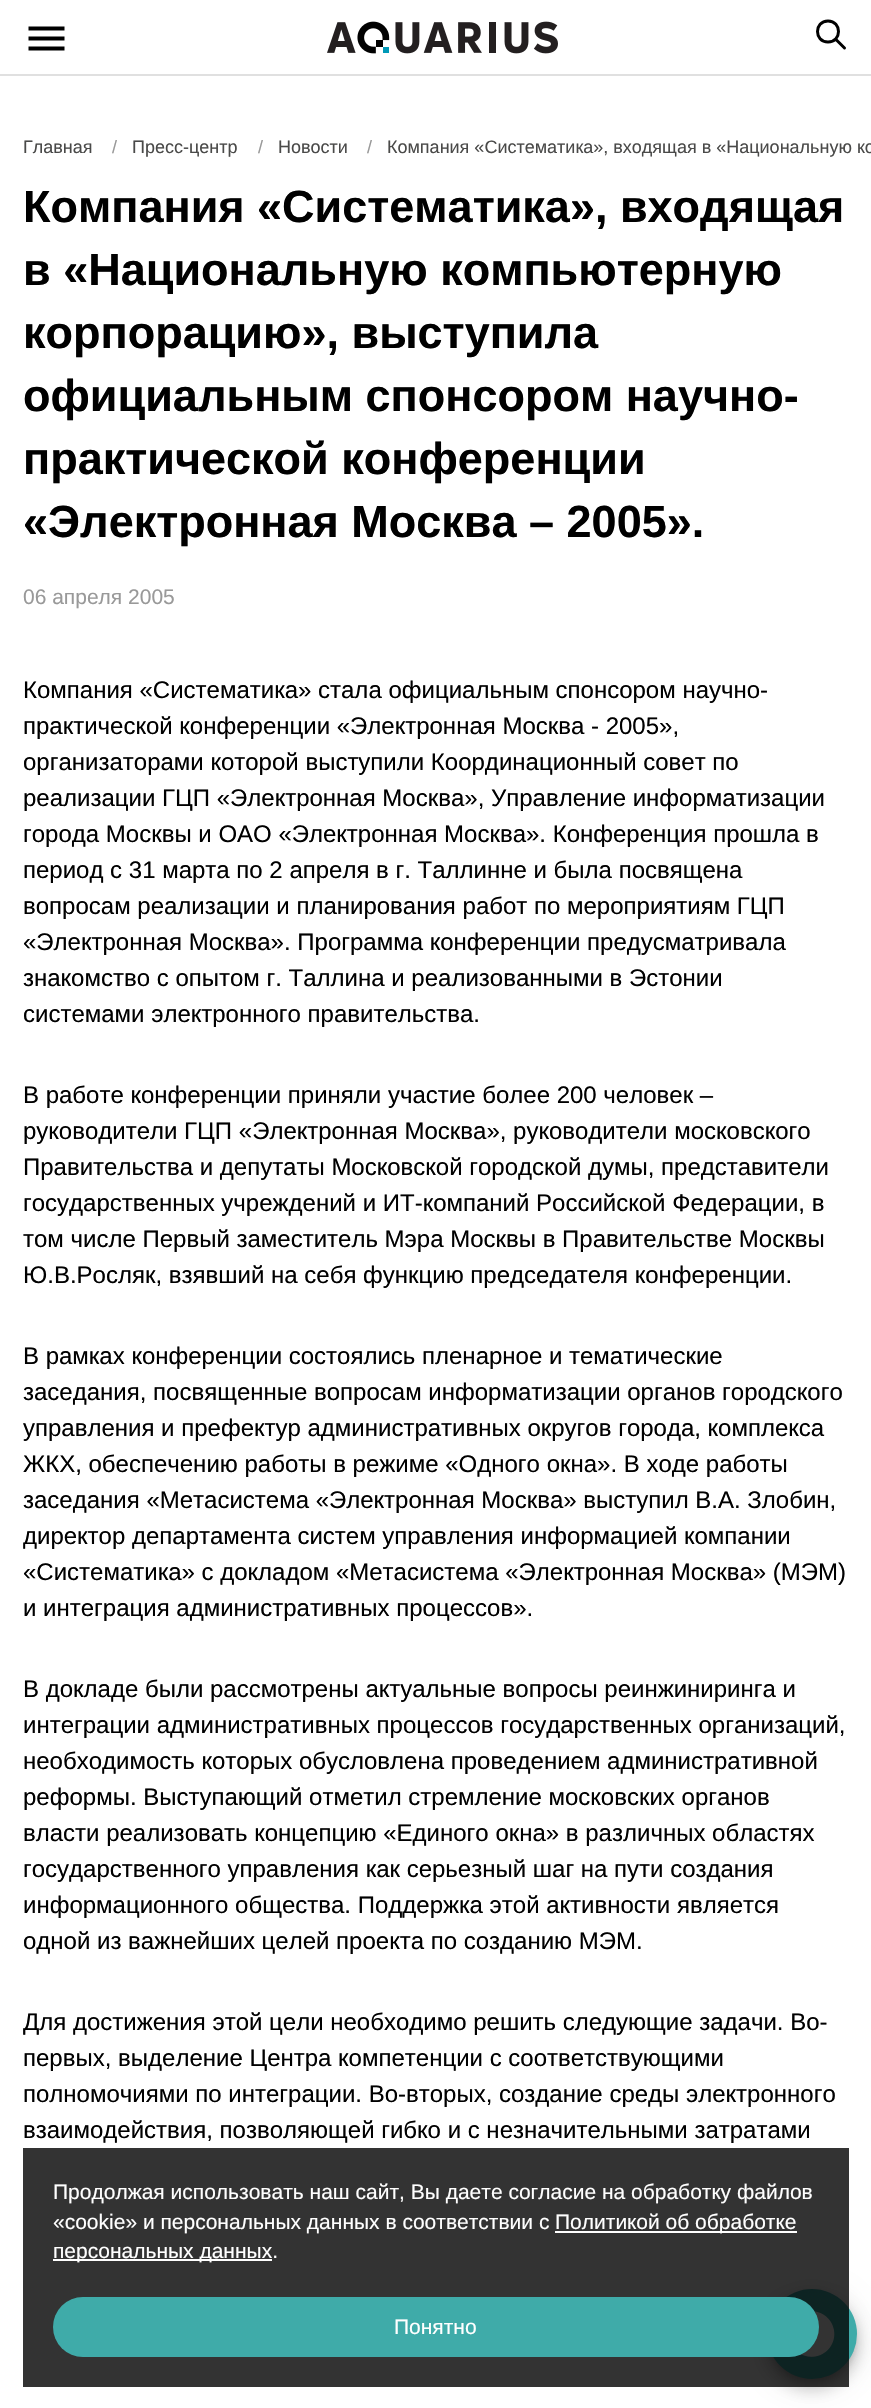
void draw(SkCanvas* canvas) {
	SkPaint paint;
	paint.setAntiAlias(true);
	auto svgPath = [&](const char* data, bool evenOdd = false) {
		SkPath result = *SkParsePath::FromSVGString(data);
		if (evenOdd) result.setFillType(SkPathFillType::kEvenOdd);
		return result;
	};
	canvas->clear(0xffffffff);
	paint.setColor(0xffe0e0e0);
	canvas->drawRect(SkRect::MakeXYWH(0, 74, 871, 2), paint);
	paint.setColor(0xff000000);
	canvas->drawPath(svgPath("M64.5 50.5H28.5V46.5H64.5ZM64.5 40.5H28.5V36.5H64.5ZM64.5 30.5H28.5V26.5H64.5Z"), paint);
	canvas->drawImageRect(SkImages::DeferredFromEncodedData(SkData::MakeFromFileName("img1.png")), SkRect::MakeXYWH(327, 21, 231, 33), SkSamplingOptions());
	paint.setStroke(true);
	paint.setStrokeWidth(3);
	paint.setStrokeCap(SkPaint::kRound_Cap);
	paint.setStrokeJoin(SkPaint::kRound_Join);
	canvas->drawPath(svgPath("M828 42C842 42 842 21 828 21C814 21 814 42 828 42ZM835.5 39L844.5 48"), paint);
	SkFont f1(fontMgr->matchFamilyStyle("Liberation Sans", SkFontStyle::Normal()), 18);
	f1.setSubpixel(true);
	paint.setStroke(false);
	paint.setColor(0xff4a4a49);
	canvas->drawString("Главная", 23, 153, f1, paint);
	paint.setColor(0xff999999);
	canvas->drawString("/", 112, 153, f1, paint);
	paint.setColor(0xff4a4a49);
	canvas->drawString("Пресс-центр", 132, 153, f1, paint);
	paint.setColor(0xff999999);
	canvas->drawString("/", 258, 153, f1, paint);
	paint.setColor(0xff4a4a49);
	canvas->drawString("Новости", 278, 153, f1, paint);
	paint.setColor(0xff999999);
	canvas->drawString("/", 367, 153, f1, paint);
	paint.setColor(0xff4a4a49);
	canvas->drawString("Компания «Систематика», входящая в «Национальную ко", 387, 153, f1, paint);
	SkFont f2(fontMgr->matchFamilyStyle("Liberation Sans", SkFontStyle::Bold()), 45);
	f2.setSubpixel(true);
	paint.setColor(0xff000000);
	canvas->drawString("Компания «Систематика», входящая", 23, 222, f2, paint);
	canvas->drawString("в «Национальную компьютерную", 23, 285, f2, paint);
	canvas->drawString("корпорацию», выступила", 23, 348, f2, paint);
	canvas->drawString("официальным спонсором научно-", 23, 411, f2, paint);
	canvas->drawString("практической конференции", 23, 474, f2, paint);
	canvas->drawString("«Электронная Москва – 2005».", 23, 537, f2, paint);
	SkFont f3(fontMgr->matchFamilyStyle("Liberation Sans", SkFontStyle::Normal()), 21);
	f3.setSubpixel(true);
	paint.setColor(0xff999999);
	canvas->drawString("06 апреля 2005", 23, 604, f3, paint);
	SkFont f4(fontMgr->matchFamilyStyle("Liberation Sans", SkFontStyle::Normal()), 24);
	f4.setSubpixel(true);
	paint.setColor(0xff000000);
	canvas->drawString("Компания «Систематика» стала официальным спонсором научно-", 23, 698, f4, paint);
	canvas->drawString("практической конференции «Электронная Москва - 2005»,", 23, 734, f4, paint);
	canvas->drawString("организаторами которой выступили Координационный совет по", 23, 770, f4, paint);
	canvas->drawString("реализации ГЦП «Электронная Москва», Управление информатизации", 23, 806, f4, paint);
	canvas->drawString("города Москвы и ОАО «Электронная Москва». Конференция прошла в", 23, 842, f4, paint);
	canvas->drawString("период с 31 марта по 2 апреля в г. Таллинне и была посвящена", 23, 878, f4, paint);
	canvas->drawString("вопросам реализации и планирования работ по мероприятиям ГЦП", 23, 914, f4, paint);
	canvas->drawString("«Электронная Москва». Программа конференции предусматривала", 23, 950, f4, paint);
	canvas->drawString("знакомство с опытом г. Таллина и реализованными в Эстонии", 23, 986, f4, paint);
	canvas->drawString("системами электронного правительства.", 23, 1022, f4, paint);
	canvas->drawString("В работе конференции приняли участие более 200 человек –", 23, 1103, f4, paint);
	canvas->drawString("руководители ГЦП «Электронная Москва», руководители московского", 23, 1139, f4, paint);
	canvas->drawString("Правительства и депутаты Московской городской думы, представители", 23, 1175, f4, paint);
	canvas->drawString("государственных учреждений и ИТ-компаний Российской Федерации, в", 23, 1211, f4, paint);
	canvas->drawString("том числе Первый заместитель Мэра Москвы в Правительстве Москвы", 23, 1247, f4, paint);
	canvas->drawString("Ю.В.Росляк, взявший на себя функцию председателя конференции.", 23, 1283, f4, paint);
	canvas->drawString("В рамках конференции состоялись пленарное и тематические", 23, 1364, f4, paint);
	canvas->drawString("заседания, посвященные вопросам информатизации органов городского", 23, 1400, f4, paint);
	canvas->drawString("управления и префектур административных округов города, комплекса", 23, 1436, f4, paint);
	canvas->drawString("ЖКХ, обеспечению работы в режиме «Одного окна». В ходе работы", 23, 1472, f4, paint);
	canvas->drawString("заседания «Метасистема «Электронная Москва» выступил В.А. Злобин,", 23, 1508, f4, paint);
	canvas->drawString("директор департамента систем управления информацией компании", 23, 1544, f4, paint);
	canvas->drawString("«Систематика» с докладом «Метасистема «Электронная Москва» (МЭМ)", 23, 1580, f4, paint);
	canvas->drawString("и интеграция административных процессов».", 23, 1616, f4, paint);
	canvas->drawString("В докладе были рассмотрены актуальные вопросы реинжиниринга и", 23, 1697, f4, paint);
	canvas->drawString("интеграции административных процессов государственных организаций,", 23, 1733, f4, paint);
	canvas->drawString("необходимость которых обусловлена проведением административной", 23, 1769, f4, paint);
	canvas->drawString("реформы. Выступающий отметил стремление московских органов", 23, 1805, f4, paint);
	canvas->drawString("власти реализовать концепцию «Единого окна» в различных областях", 23, 1841, f4, paint);
	canvas->drawString("государственного управления как серьезный шаг на пути создания", 23, 1877, f4, paint);
	canvas->drawString("информационного общества. Поддержка этой активности является", 23, 1913, f4, paint);
	canvas->drawString("одной из важнейших целей проекта по созданию МЭМ.", 23, 1949, f4, paint);
	canvas->drawString("Для достижения этой цели необходимо решить следующие задачи. Во-", 23, 2030, f4, paint);
	canvas->drawString("первых, выделение Центра компетенции с соответствующими", 23, 2066, f4, paint);
	canvas->drawString("полномочиями по интеграции. Во-вторых, создание среды электронного", 23, 2102, f4, paint);
	canvas->drawString("взаимодействия, позволяющей гибко и с незначительными затратами", 23, 2138, f4, paint);
	paint.setColor(0x1f000000);
	paint.setMaskFilter(SkMaskFilter::MakeBlur(kNormal_SkBlurStyle, 12));
	canvas->drawRoundRect(SkRect::MakeXYWH(765, 2291, 93, 93), 46.5, 46.5, paint);
	paint.setMaskFilter(nullptr);
	paint.setColor(0x24000000);
	paint.setMaskFilter(SkMaskFilter::MakeBlur(kNormal_SkBlurStyle, 7.5));
	canvas->drawRoundRect(SkRect::MakeXYWH(765, 2298, 93, 93), 46.5, 46.5, paint);
	paint.setMaskFilter(nullptr);
	paint.setColor(0x33000000);
	paint.setMaskFilter(SkMaskFilter::MakeBlur(kNormal_SkBlurStyle, 4));
	canvas->drawRoundRect(SkRect::MakeXYWH(770, 2298, 84, 84), 42, 42, paint);
	paint.setMaskFilter(nullptr);
	paint.setColor(0xff3faba9);
	canvas->drawCircle(812, 2334, 45, paint);
	canvas->drawImageRect(SkImages::DeferredFromEncodedData(SkData::MakeFromFileName("img2.png")), SkRect::MakeXYWH(789, 2311, 46, 46), SkSamplingOptions());
	paint.setColor(0xcc000000);
	canvas->drawRect(SkRect::MakeXYWH(23, 2148, 826, 239), paint);
	paint.setColor(0xffffffff);
	canvas->drawString("Продолжая использовать наш сайт, Вы даете согласие на обработку файлов", 53, 2199, f3, paint);
	canvas->drawString("«cookie» и персональных данных в соответствии с", 53, 2229, f3, paint);
	canvas->drawRect(SkRect::MakeXYWH(555, 2231, 242, 2), paint);
	canvas->drawString("Политикой об обработке", 555, 2229, f3, paint);
	canvas->drawRect(SkRect::MakeXYWH(53, 2259, 219, 2), paint);
	canvas->drawString("персональных данных.", 53, 2258, f3, paint);
	paint.setColor(0xff3faba9);
	canvas->drawRoundRect(SkRect::MakeXYWH(53, 2297, 766, 60), 30, 30, paint);
	paint.setColor(0xffffffff);
	canvas->drawString("Понятно", 394, 2334, f3, paint);
}
